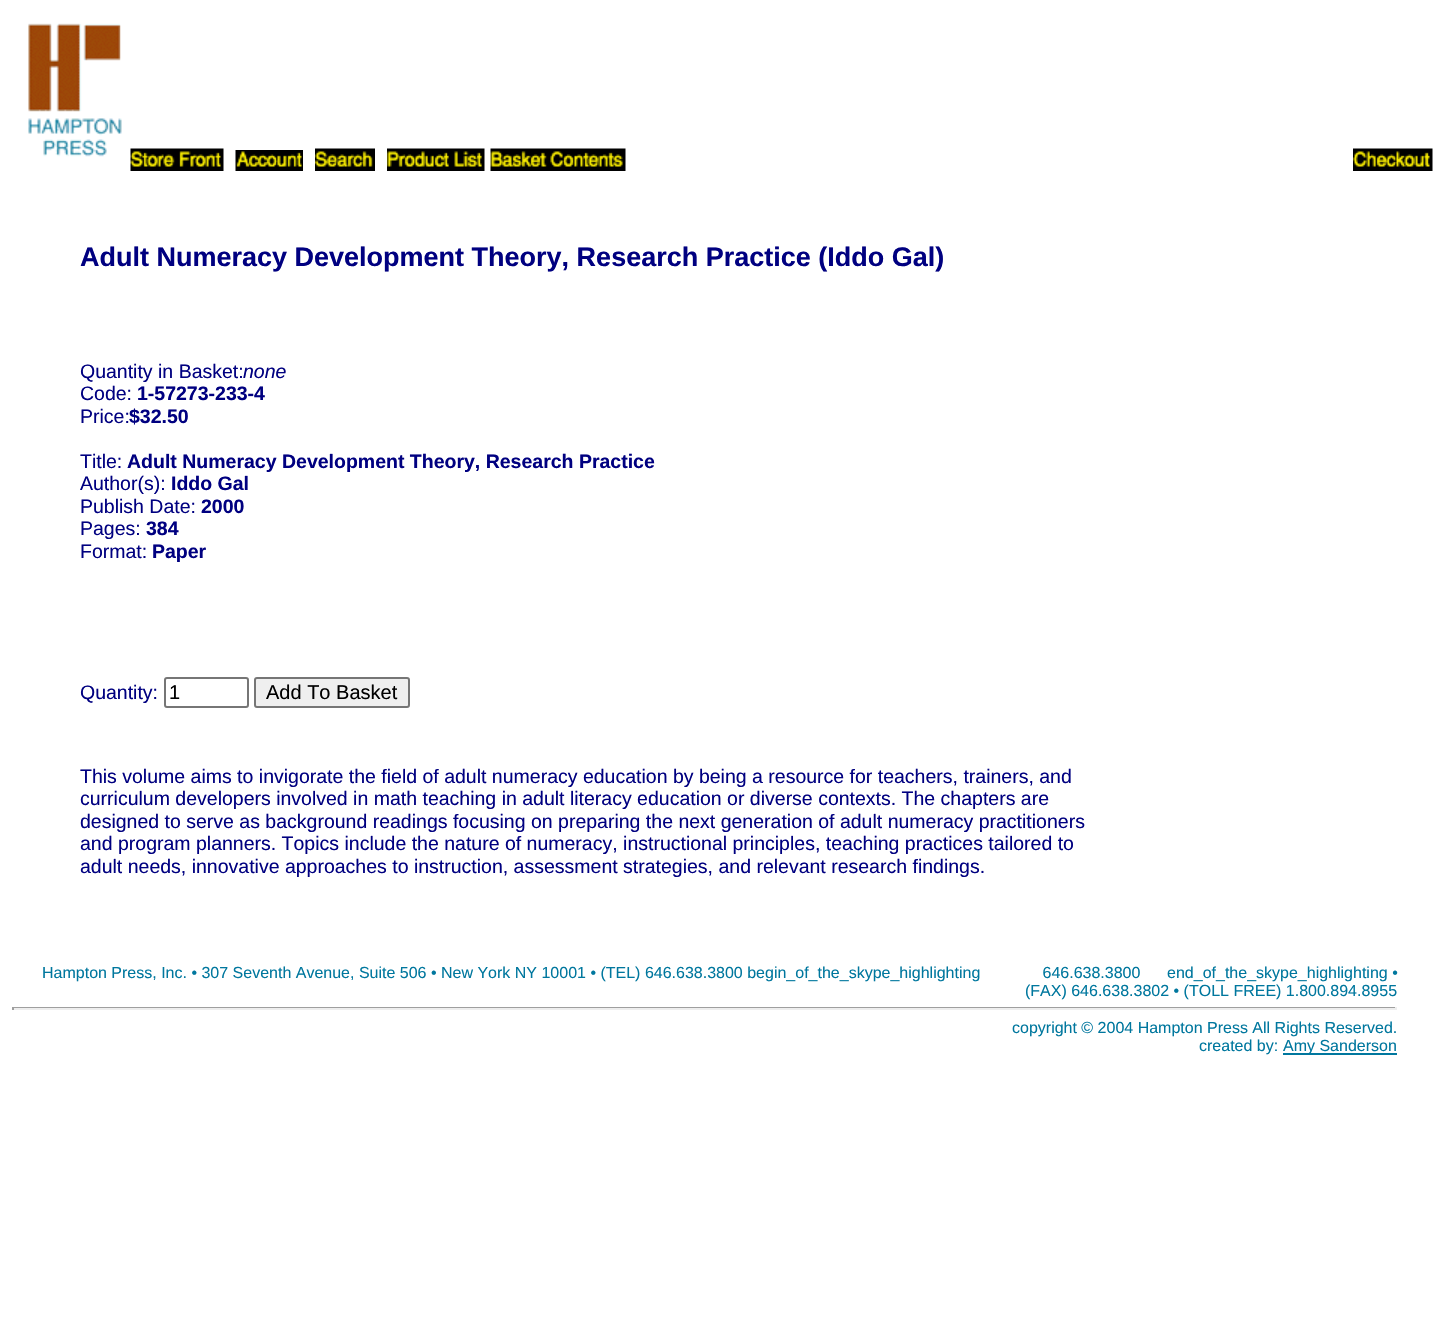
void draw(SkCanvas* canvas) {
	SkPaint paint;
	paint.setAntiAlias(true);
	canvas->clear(0xffffffff);
	canvas->drawImageRect(SkImages::DeferredFromEncodedData(SkData::MakeFromFileName("img1.png")), SkRect::MakeXYWH(28, 23, 94, 134), SkSamplingOptions());
	canvas->drawImageRect(SkImages::DeferredFromEncodedData(SkData::MakeFromFileName("img2.png")), SkRect::MakeXYWH(130, 148, 94, 23), SkSamplingOptions());
	canvas->drawImageRect(SkImages::DeferredFromEncodedData(SkData::MakeFromFileName("img3.png")), SkRect::MakeXYWH(235, 150, 68, 21), SkSamplingOptions());
	canvas->drawImageRect(SkImages::DeferredFromEncodedData(SkData::MakeFromFileName("img4.png")), SkRect::MakeXYWH(315, 148, 60, 23), SkSamplingOptions());
	canvas->drawImageRect(SkImages::DeferredFromEncodedData(SkData::MakeFromFileName("img5.png")), SkRect::MakeXYWH(387, 148, 98, 23), SkSamplingOptions());
	canvas->drawImageRect(SkImages::DeferredFromEncodedData(SkData::MakeFromFileName("img6.png")), SkRect::MakeXYWH(490, 148, 136, 23), SkSamplingOptions());
	canvas->drawImageRect(SkImages::DeferredFromEncodedData(SkData::MakeFromFileName("img7.png")), SkRect::MakeXYWH(1353, 148, 80, 23), SkSamplingOptions());
	SkFont f1(fontMgr->matchFamilyStyle("Liberation Sans", SkFontStyle::Bold()), 27);
	f1.setSubpixel(true);
	paint.setColor(0xff000080);
	canvas->drawString("Adult Numeracy Development Theory, Research Practice (Iddo Gal)", 80, 266, f1, paint);
	SkFont f2(fontMgr->matchFamilyStyle("Liberation Sans", SkFontStyle::Normal()), 19.5);
	f2.setSubpixel(true);
	canvas->drawString("Quantity in Basket:", 80, 378, f2, paint);
	SkFont f3(fontMgr->matchFamilyStyle("Liberation Sans", SkFontStyle::Italic()), 19.5);
	f3.setSubpixel(true);
	canvas->drawString("none", 243, 378, f3, paint);
	canvas->drawString("Code:", 80, 400, f2, paint);
	SkFont f4(fontMgr->matchFamilyStyle("Liberation Sans", SkFontStyle::Bold()), 19.5);
	f4.setSubpixel(true);
	canvas->drawString("1-57273-233-4", 137, 400, f4, paint);
	canvas->drawString("Price:", 80, 423, f2, paint);
	canvas->drawString("$32.50", 129, 423, f4, paint);
	canvas->drawString("Title:", 80, 468, f2, paint);
	canvas->drawString("Adult Numeracy Development Theory, Research Practice", 127, 468, f4, paint);
	canvas->drawString("Author(s):", 80, 490, f2, paint);
	canvas->drawString("Iddo Gal", 171, 490, f4, paint);
	canvas->drawString("Publish Date:", 80, 513, f2, paint);
	canvas->drawString("2000", 201, 513, f4, paint);
	canvas->drawString("Pages:", 80, 535, f2, paint);
	canvas->drawString("384", 146, 535, f4, paint);
	canvas->drawString("Format:", 80, 558, f2, paint);
	canvas->drawString("Paper", 152, 558, f4, paint);
	canvas->drawString("Quantity:", 80, 699, f2, paint);
	paint.setStroke(true);
	paint.setStrokeWidth(2);
	paint.setColor(0xff767676);
	canvas->drawRoundRect(SkRect::MakeXYWH(165, 678, 83, 29), 2, 2, paint);
	SkFont f5(fontMgr->matchFamilyStyle("Liberation Sans", SkFontStyle::Normal()), 20);
	f5.setSubpixel(true);
	paint.setStroke(false);
	paint.setColor(0xff000000);
	canvas->drawString("1", 169, 699, f5, paint);
	paint.setColor(0xffefefef);
	canvas->drawRoundRect(SkRect::MakeXYWH(255, 678, 154, 29), 2, 2, paint);
	paint.setStroke(true);
	paint.setColor(0xff767676);
	canvas->drawRoundRect(SkRect::MakeXYWH(255, 678, 154, 29), 2, 2, paint);
	paint.setStroke(false);
	paint.setColor(0xff000000);
	canvas->drawString("Add To Basket", 266, 699, f5, paint);
	paint.setColor(0xff000080);
	canvas->drawString("This volume aims to invigorate the field of adult numeracy education by being a resource for teachers, trainers, and", 80, 783, f2, paint);
	canvas->drawString("curriculum developers involved in math teaching in adult literacy education or diverse contexts. The chapters are", 80, 805, f2, paint);
	canvas->drawString("designed to serve as background readings focusing on preparing the next generation of adult numeracy practitioners", 80, 828, f2, paint);
	canvas->drawString("and program planners. Topics include the nature of numeracy, instructional principles, teaching practices tailored to", 80, 850, f2, paint);
	canvas->drawString("adult needs, innovative approaches to instruction, assessment strategies, and relevant research findings.", 80, 873, f2, paint);
	SkFont f6(fontMgr->matchFamilyStyle("Liberation Sans", SkFontStyle::Normal()), 16);
	f6.setSubpixel(true);
	paint.setColor(0xff00779e);
	canvas->drawString("Hampton Press, Inc. • 307 Seventh Avenue, Suite 506 • New York NY 10001 • (TEL) 646.638.3800 begin_of_the_skype_highlighting              646.638.3800      end_of_the_skype_highlighting •", 42, 978, f6, paint);
	canvas->drawString("(FAX) 646.638.3802 • (TOLL FREE) 1.800.894.8955", 1025, 996, f6, paint);
	paint.setColor(0xff9f9f9f);
	canvas->drawRect(SkRect::MakeXYWH(12, 1007, 1385, 1), paint);
	paint.setColor(0xffeeeeee);
	canvas->drawRect(SkRect::MakeXYWH(1395, 1007, 2, 3), paint);
	canvas->drawRect(SkRect::MakeXYWH(12, 1008, 1385, 2), paint);
	paint.setColor(0xff9f9f9f);
	canvas->drawRect(SkRect::MakeXYWH(12, 1007, 2, 3), paint);
	paint.setColor(0xff00779e);
	canvas->drawString("copyright © 2004 Hampton Press All Rights Reserved.", 1012, 1033, f6, paint);
	canvas->drawString("created by:", 1199, 1051, f6, paint);
	canvas->drawRect(SkRect::MakeXYWH(1283, 1053, 114, 2), paint);
	canvas->drawString("Amy Sanderson", 1283, 1051, f6, paint);
}
